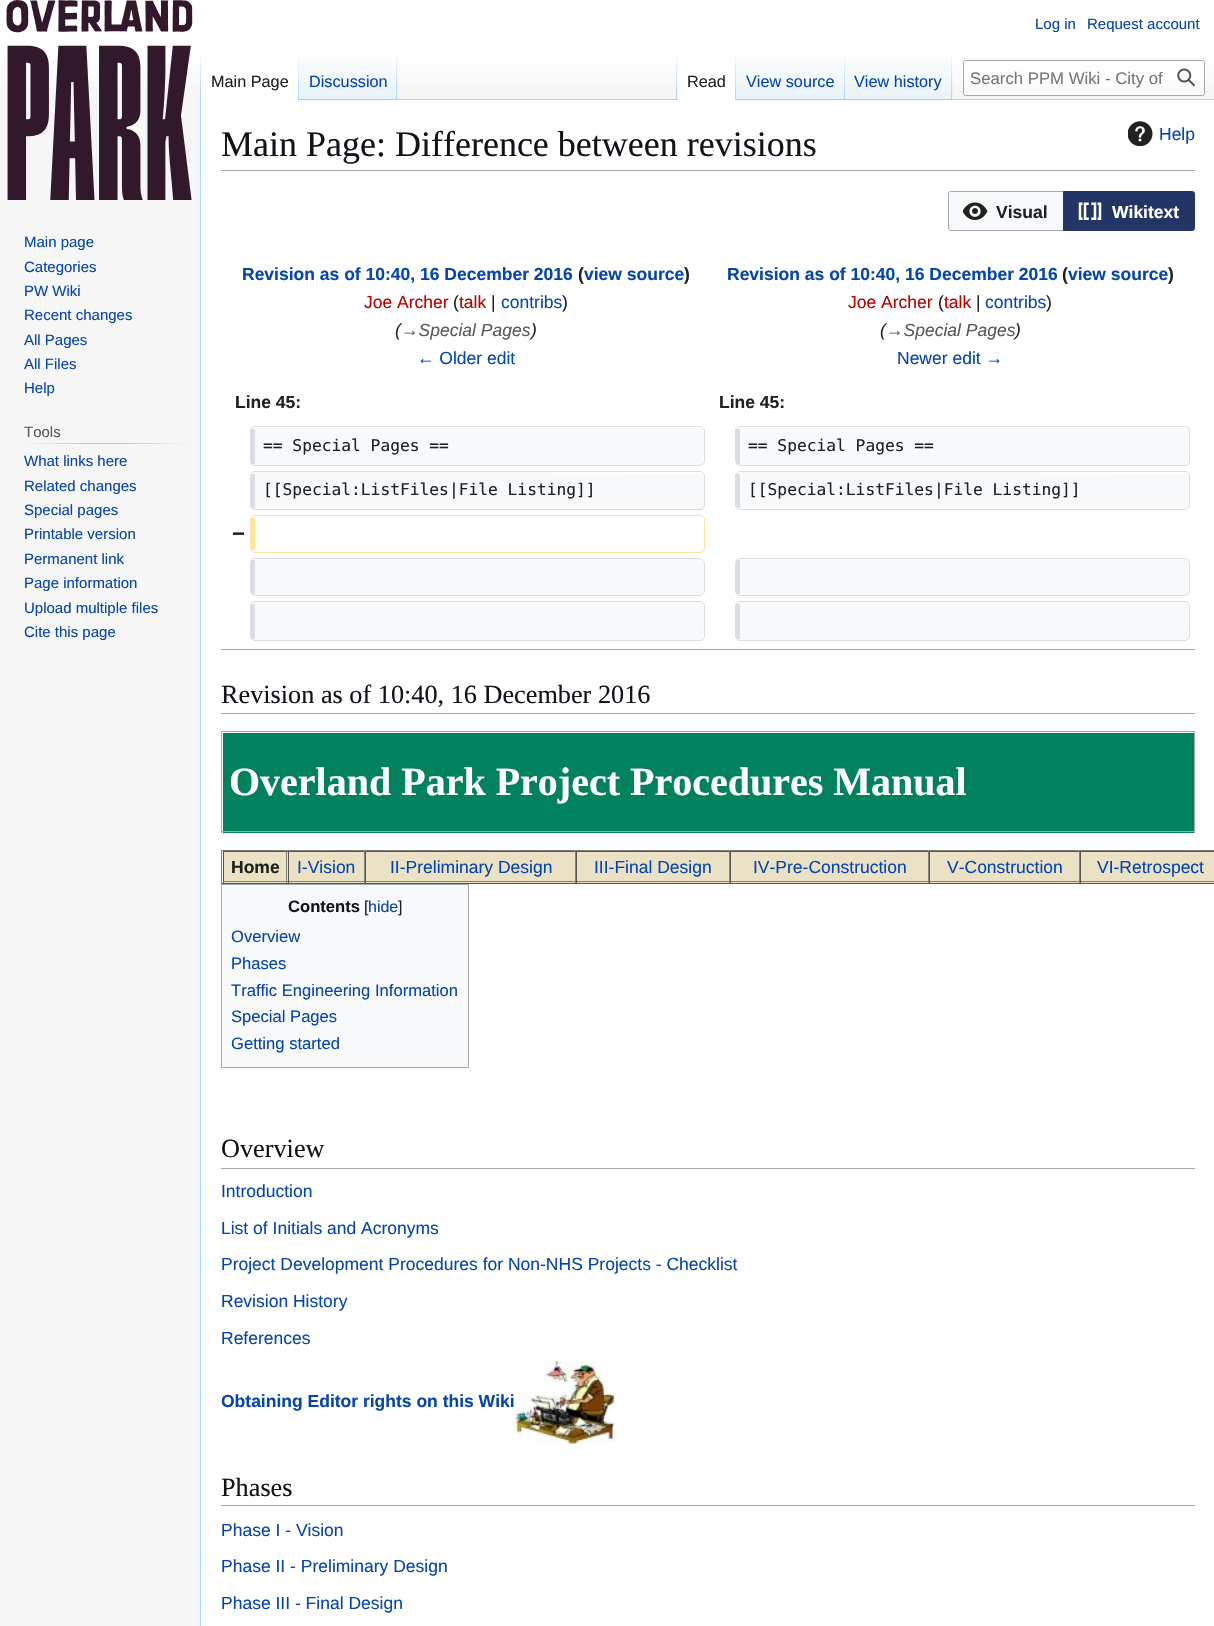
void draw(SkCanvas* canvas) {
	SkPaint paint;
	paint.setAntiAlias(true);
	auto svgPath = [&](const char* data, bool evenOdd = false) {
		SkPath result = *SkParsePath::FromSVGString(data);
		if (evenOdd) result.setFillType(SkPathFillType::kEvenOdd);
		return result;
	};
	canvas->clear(0xfff6f6f6);
	{
		const SkColor colors[] = {0xffffffff, 0xfff6f6f6};
		const float stops[] = {0.5, 1};
		const SkPoint ends[] = {{608, 0}, {608, 100}};
		paint.setShader(SkGradientShader::MakeLinear(ends, colors, stops, 2, SkTileMode::kClamp));
		paint.setAlpha(255);
	}
	canvas->drawRect(SkRect::MakeXYWH(0, 0, 1214, 86), paint);
	SkFont f1(fontMgr->matchFamilyStyle("Liberation Sans", SkFontStyle::Normal()), 15);
	f1.setSubpixel(true);
	paint.setShader(nullptr);
	paint.setColor(0xff0645ad);
	canvas->drawString("Log in", 1035, 29, f1, paint);
	canvas->drawString("Request account", 1087, 29, f1, paint);
	paint.setColor(0xffa7d7f9);
	canvas->drawRect(SkRect::MakeXYWH(200, 99, 1, 1527), paint);
	{
		const SkColor colors[] = {0x00a7d7f9, 0xffa7d7f9};
		const float stops[] = {0, 1};
		const SkPoint ends[] = {{201, 50}, {201, 100}};
		paint.setShader(SkGradientShader::MakeLinear(ends, colors, stops, 2, SkTileMode::kClamp));
		paint.setAlpha(255);
	}
	canvas->drawRect(SkRect::MakeXYWH(200, 50, 1, 50), paint);
	paint.setShader(nullptr);
	paint.setColor(0xffffffff);
	canvas->drawRect(SkRect::MakeXYWH(201, 64, 97, 36), paint);
	{
		const SkColor colors[] = {0xffffffff, 0xffa7d7f9};
		const float stops[] = {0, 1};
		const SkPoint ends[] = {{298, 50}, {298, 100}};
		paint.setShader(SkGradientShader::MakeLinear(ends, colors, stops, 2, SkTileMode::kClamp));
		paint.setAlpha(255);
	}
	canvas->drawRect(SkRect::MakeXYWH(298, 50, 1, 50), paint);
	SkFont f2(fontMgr->matchFamilyStyle("Liberation Sans", SkFontStyle::Normal()), 16.25);
	f2.setSubpixel(true);
	paint.setShader(nullptr);
	paint.setColor(0xff202122);
	canvas->drawString("Main Page", 211, 87, f2, paint);
	{
		const SkColor colors[] = {0xff77c1f6, 0xffe8f2f8, 0xffffffff};
		const float stops[] = {0, 0.03, 1};
		const SkPoint ends[] = {{348, 100}, {348, 50}};
		paint.setShader(SkGradientShader::MakeLinear(ends, colors, stops, 3, SkTileMode::kClamp));
		paint.setAlpha(255);
	}
	canvas->drawRect(SkRect::MakeXYWH(299, 57, 99, 43), paint);
	{
		const SkColor colors[] = {0x00a7d7f9, 0xffa7d7f9};
		const float stops[] = {0, 1};
		const SkPoint ends[] = {{397, 50}, {397, 100}};
		paint.setShader(SkGradientShader::MakeLinear(ends, colors, stops, 2, SkTileMode::kClamp));
		paint.setAlpha(255);
	}
	canvas->drawRect(SkRect::MakeXYWH(396, 50, 1, 50), paint);
	paint.setShader(nullptr);
	paint.setColor(0xff0645ad);
	canvas->drawString("Discussion", 309, 87, f2, paint);
	paint.setColor(0xffa7d7f9);
	canvas->drawRect(SkRect::MakeXYWH(398, 99, 816, 1), paint);
	{
		const SkColor colors[] = {0x00a7d7f9, 0xffa7d7f9};
		const float stops[] = {0, 1};
		const SkPoint ends[] = {{677, 50}, {677, 100}};
		paint.setShader(SkGradientShader::MakeLinear(ends, colors, stops, 2, SkTileMode::kClamp));
		paint.setAlpha(255);
	}
	canvas->drawRect(SkRect::MakeXYWH(676, 50, 1, 50), paint);
	paint.setShader(nullptr);
	paint.setColor(0xffffffff);
	canvas->drawRect(SkRect::MakeXYWH(678, 64, 57, 36), paint);
	{
		const SkColor colors[] = {0xffffffff, 0xffa7d7f9};
		const float stops[] = {0, 1};
		const SkPoint ends[] = {{736, 50}, {736, 100}};
		paint.setShader(SkGradientShader::MakeLinear(ends, colors, stops, 2, SkTileMode::kClamp));
		paint.setAlpha(255);
	}
	canvas->drawRect(SkRect::MakeXYWH(735, 50, 1, 50), paint);
	paint.setShader(nullptr);
	paint.setColor(0xff202122);
	canvas->drawString("Read", 687, 87, f2, paint);
	{
		const SkColor colors[] = {0xff77c1f6, 0xffe8f2f8, 0xffffffff};
		const float stops[] = {0, 0.03, 1};
		const SkPoint ends[] = {{791, 100}, {791, 50}};
		paint.setShader(SkGradientShader::MakeLinear(ends, colors, stops, 3, SkTileMode::kClamp));
		paint.setAlpha(255);
	}
	canvas->drawRect(SkRect::MakeXYWH(736, 57, 109, 43), paint);
	{
		const SkColor colors[] = {0x00a7d7f9, 0xffa7d7f9};
		const float stops[] = {0, 1};
		const SkPoint ends[] = {{844, 50}, {844, 100}};
		paint.setShader(SkGradientShader::MakeLinear(ends, colors, stops, 2, SkTileMode::kClamp));
		paint.setAlpha(255);
	}
	canvas->drawRect(SkRect::MakeXYWH(844, 50, 1, 50), paint);
	paint.setShader(nullptr);
	paint.setColor(0xff0645ad);
	canvas->drawString("View source", 746, 87, f2, paint);
	{
		const SkColor colors[] = {0xff77c1f6, 0xffe8f2f8, 0xffffffff};
		const float stops[] = {0, 0.03, 1};
		const SkPoint ends[] = {{899, 100}, {899, 50}};
		paint.setShader(SkGradientShader::MakeLinear(ends, colors, stops, 3, SkTileMode::kClamp));
		paint.setAlpha(255);
	}
	canvas->drawRect(SkRect::MakeXYWH(845, 57, 108, 43), paint);
	{
		const SkColor colors[] = {0x00a7d7f9, 0xffa7d7f9};
		const float stops[] = {0, 1};
		const SkPoint ends[] = {{952, 50}, {952, 100}};
		paint.setShader(SkGradientShader::MakeLinear(ends, colors, stops, 2, SkTileMode::kClamp));
		paint.setAlpha(255);
	}
	canvas->drawRect(SkRect::MakeXYWH(951, 50, 1, 50), paint);
	paint.setShader(nullptr);
	paint.setColor(0xff0645ad);
	canvas->drawString("View history", 854, 87, f2, paint);
	paint.setColor(0x80ffffff);
	canvas->drawRoundRect(SkRect::MakeXYWH(963.5, 60.5, 241, 35), 2, 2, paint);
	paint.setStroke(true);
	paint.setStrokeWidth(1);
	paint.setColor(0xffa2a9b1);
	canvas->drawRoundRect(SkRect::MakeXYWH(963.5, 60.5, 241, 35), 2, 2, paint);
	SkFont f3(fontMgr->matchFamilyStyle("Liberation Sans", SkFontStyle::Normal()), 16.75);
	f3.setSubpixel(true);
	paint.setStroke(false);
	paint.setColor(0xff72777d);
	canvas->drawString("Search PPM Wiki - City of", 970, 84, f3, paint);
	canvas->drawImageRect(SkImages::DeferredFromEncodedData(SkData::MakeFromFileName("img1.png")), SkRect::MakeXYWH(1177, 68, 19, 19), SkSamplingOptions());
	canvas->drawImageRect(SkImages::DeferredFromEncodedData(SkData::MakeFromFileName("img2.png")), SkRect::MakeXYWH(6, 0, 187, 200), SkSamplingOptions());
	paint.setColor(0xff0645ad);
	canvas->drawString("Main page", 24, 247, f1, paint);
	canvas->drawString("Categories", 24, 272, f1, paint);
	canvas->drawString("PW Wiki", 24, 296, f1, paint);
	canvas->drawString("Recent changes", 24, 320, f1, paint);
	canvas->drawString("All Pages", 24, 345, f1, paint);
	canvas->drawString("All Files", 24, 369, f1, paint);
	canvas->drawString("Help", 24, 393, f1, paint);
	{
		const SkColor colors[] = {0xfff6f6f6, 0xffc8ccd1, 0xffc8ccd1, 0xfff6f6f6};
		const float stops[] = {0, 0.33, 0.66, 1};
		const SkPoint ends[] = {{24, 443}, {188, 443}};
		paint.setShader(SkGradientShader::MakeLinear(ends, colors, stops, 4, SkTileMode::kClamp));
		paint.setAlpha(255);
	}
	canvas->drawRect(SkRect::MakeXYWH(24, 443, 164, 1), paint);
	paint.setShader(nullptr);
	paint.setColor(0xff54595d);
	canvas->drawString("Tools", 24, 437, f1, paint);
	paint.setColor(0xff0645ad);
	canvas->drawString("What links here", 24, 466, f1, paint);
	canvas->drawString("Related changes", 24, 491, f1, paint);
	canvas->drawString("Special pages", 24, 515, f1, paint);
	canvas->drawString("Printable version", 24, 539, f1, paint);
	canvas->drawString("Permanent link", 24, 564, f1, paint);
	canvas->drawString("Page information", 24, 588, f1, paint);
	canvas->drawString("Upload multiple files", 24, 613, f1, paint);
	canvas->drawString("Cite this page", 24, 637, f1, paint);
	paint.setColor(0xffffffff);
	canvas->drawRect(SkRect::MakeXYWH(201, 100, 1013, 1526), paint);
	paint.setColor(0xffa2a9b1);
	canvas->drawRect(SkRect::MakeXYWH(221, 170, 974, 1), paint);
	SkFont f4(fontMgr->matchFamilyStyle("Liberation Serif", SkFontStyle::Normal()), 36);
	f4.setSubpixel(true);
	paint.setColor(0xff101418);
	canvas->drawString("Main Page: Difference between revisions", 221, 156, f4, paint);
	canvas->drawImageRect(SkImages::DeferredFromEncodedData(SkData::MakeFromFileName("img3.png")), SkRect::MakeXYWH(1128, 121, 25, 25), SkSamplingOptions());
	SkFont f5(fontMgr->matchFamilyStyle("Liberation Sans", SkFontStyle::Normal()), 17.5);
	f5.setSubpixel(true);
	paint.setColor(0xff0645ad);
	canvas->drawString("Help", 1159, 140, f5, paint);
	paint.setColor(0xfff8f9fa);
	canvas->drawPath(svgPath("M950.5 191.5H1063.5V230.5H950.5C949.5 230.5 948.5 229.5 948.5 228.5V193.5C948.5 192.5 949.5 191.5 950.5 191.5Z"), paint);
	paint.setStroke(true);
	paint.setColor(0xffa2a9b1);
	canvas->drawPath(svgPath("M950.5 191.5H1063.5V230.5H950.5C949.5 230.5 948.5 229.5 948.5 228.5V193.5C948.5 192.5 949.5 191.5 950.5 191.5Z"), paint);
	canvas->drawImageRect(SkImages::DeferredFromEncodedData(SkData::MakeFromFileName("img4.png")), SkRect::MakeXYWH(963, 202, 25, 18), SkSamplingOptions());
	SkFont f6(fontMgr->matchFamilyStyle("Liberation Sans", SkFontStyle::Bold()), 17.5);
	f6.setSubpixel(true);
	paint.setStroke(false);
	paint.setColor(0xff202122);
	canvas->drawString("Visual", 996, 218, f6, paint);
	paint.setColor(0xff233566);
	canvas->drawPath(svgPath("M1063.5 191.5H1192.5C1193.5 191.5 1194.5 192.5 1194.5 193.5V228.5C1194.5 229.5 1193.5 230.5 1192.5 230.5H1063.5Z"), paint);
	paint.setStroke(true);
	canvas->drawPath(svgPath("M1063.5 191.5H1192.5C1193.5 191.5 1194.5 192.5 1194.5 193.5V228.5C1194.5 229.5 1193.5 230.5 1192.5 230.5H1063.5Z"), paint);
	canvas->drawImageRect(SkImages::DeferredFromEncodedData(SkData::MakeFromFileName("img5.png")), SkRect::MakeXYWH(1078, 202, 24, 18), SkSamplingOptions());
	paint.setStroke(false);
	paint.setColor(0xffffffff);
	canvas->drawString("Wikitext", 1112, 218, f6, paint);
	paint.setColor(0xff0645ad);
	canvas->drawString("Revision as of 10:40, 16 December 2016", 242, 280, f6, paint);
	paint.setColor(0xff202122);
	canvas->drawString("(", 578, 280, f6, paint);
	paint.setColor(0xff0645ad);
	canvas->drawString("view source", 584, 280, f6, paint);
	paint.setColor(0xff202122);
	canvas->drawString(")", 684, 280, f6, paint);
	paint.setColor(0xffba0000);
	canvas->drawString("Joe Archer", 364, 308, f5, paint);
	paint.setColor(0xff202122);
	canvas->drawString("(", 453, 308, f5, paint);
	paint.setColor(0xffba0000);
	canvas->drawString("talk", 459, 308, f5, paint);
	paint.setColor(0xff202122);
	canvas->drawString("|", 491, 308, f5, paint);
	paint.setColor(0xff0645ad);
	canvas->drawString("contribs", 501, 308, f5, paint);
	paint.setColor(0xff202122);
	canvas->drawString(")", 562, 308, f5, paint);
	SkFont f7(fontMgr->matchFamilyStyle("Liberation Sans", SkFontStyle::Italic()), 17.5);
	f7.setSubpixel(true);
	canvas->drawString("(", 395, 336, f7, paint);
	paint.setColor(0xff54595d);
	canvas->drawString("→Special Pages", 401, 336, f7, paint);
	paint.setColor(0xff202122);
	canvas->drawString(")", 531, 336, f7, paint);
	paint.setColor(0xff0645ad);
	canvas->drawString("← Older edit", 417, 364, f5, paint);
	canvas->drawString("Revision as of 10:40, 16 December 2016", 727, 280, f6, paint);
	paint.setColor(0xff202122);
	canvas->drawString("(", 1062, 280, f6, paint);
	paint.setColor(0xff0645ad);
	canvas->drawString("view source", 1068, 280, f6, paint);
	paint.setColor(0xff202122);
	canvas->drawString(")", 1168, 280, f6, paint);
	paint.setColor(0xffba0000);
	canvas->drawString("Joe Archer", 848, 308, f5, paint);
	paint.setColor(0xff202122);
	canvas->drawString("(", 938, 308, f5, paint);
	paint.setColor(0xffba0000);
	canvas->drawString("talk", 944, 308, f5, paint);
	paint.setColor(0xff202122);
	canvas->drawString("|", 976, 308, f5, paint);
	paint.setColor(0xff0645ad);
	canvas->drawString("contribs", 985, 308, f5, paint);
	paint.setColor(0xff202122);
	canvas->drawString(")", 1046, 308, f5, paint);
	canvas->drawString("(", 880, 336, f7, paint);
	paint.setColor(0xff54595d);
	canvas->drawString("→Special Pages", 886, 336, f7, paint);
	paint.setColor(0xff202122);
	canvas->drawString(")", 1015, 336, f7, paint);
	paint.setColor(0xff0645ad);
	canvas->drawString("Newer edit →", 897, 364, f5, paint);
	paint.setColor(0xff202122);
	canvas->drawString("Line 45:", 235, 408, f6, paint);
	canvas->drawString("Line 45:", 719, 408, f6, paint);
	paint.setColor(0xfff8f9fa);
	canvas->drawPath(svgPath("M255 428H700C705 428 704 433 704 436L703 462C703 464 701 465 700 465H255V461Z"), paint);
	paint.setStroke(true);
	paint.setColor(0xffdadde3);
	canvas->drawRoundRect(SkRect::MakeXYWH(250.5, 426.5, 454, 39), 4.5, 4.5, paint);
	paint.setStroke(false);
	canvas->drawRect(SkRect::MakeXYWH(251, 429, 4, 35), paint);
	SkFont f8(fontMgr->matchFamilyStyle("DejaVu Sans Mono", SkFontStyle::Normal()), 16.25);
	f8.setSubpixel(true);
	paint.setColor(0xff202122);
	canvas->drawString("== Special Pages ==", 263, 451, f8, paint);
	paint.setColor(0xfff8f9fa);
	canvas->drawPath(svgPath("M740 428H1185C1190 428 1189 433 1189 436L1188 462C1188 464 1186 465 1185 465H740V461Z"), paint);
	paint.setStroke(true);
	paint.setColor(0xffdadde3);
	canvas->drawRoundRect(SkRect::MakeXYWH(735.5, 426.5, 454, 39), 4.5, 4.5, paint);
	paint.setStroke(false);
	canvas->drawRect(SkRect::MakeXYWH(736, 429, 4, 35), paint);
	paint.setColor(0xff202122);
	canvas->drawString("== Special Pages ==", 748, 451, f8, paint);
	paint.setColor(0xfff8f9fa);
	canvas->drawPath(svgPath("M255 472L700 473C706 474 704 483 704 486V505C704 507 702 509 700 509H255V505Z"), paint);
	paint.setStroke(true);
	paint.setColor(0xffdadde3);
	canvas->drawRoundRect(SkRect::MakeXYWH(250.5, 471.5, 454, 38), 4.5, 4.5, paint);
	paint.setStroke(false);
	canvas->drawRect(SkRect::MakeXYWH(251, 474, 4, 34), paint);
	paint.setColor(0xff202122);
	canvas->drawString("[[Special:ListFiles|File Listing]]", 263, 495, f8, paint);
	paint.setColor(0xfff8f9fa);
	canvas->drawPath(svgPath("M740 472L1185 473C1191 474 1189 483 1189 486V505C1189 507 1187 509 1185 509H740V505Z"), paint);
	paint.setStroke(true);
	paint.setColor(0xffdadde3);
	canvas->drawRoundRect(SkRect::MakeXYWH(735.5, 471.5, 454, 38), 4.5, 4.5, paint);
	paint.setStroke(false);
	canvas->drawRect(SkRect::MakeXYWH(736, 474, 4, 34), paint);
	paint.setColor(0xff202122);
	canvas->drawString("[[Special:ListFiles|File Listing]]", 748, 495, f8, paint);
	SkFont f9(fontMgr->matchFamilyStyle("Liberation Sans", SkFontStyle::Bold()), 22);
	f9.setSubpixel(true);
	canvas->drawString("−", 232, 541, f9, paint);
	paint.setStroke(true);
	paint.setColor(0xffffe49c);
	canvas->drawRoundRect(SkRect::MakeXYWH(250.5, 515.5, 454, 37), 4.5, 4.5, paint);
	paint.setStroke(false);
	canvas->drawRect(SkRect::MakeXYWH(251, 518, 4, 32), paint);
	paint.setColor(0xfff8f9fa);
	canvas->drawPath(svgPath("M255 559H700C706 560 704 569 704 572V591C704 593 702 595 700 595H255V591Z"), paint);
	paint.setStroke(true);
	paint.setColor(0xffdadde3);
	canvas->drawRoundRect(SkRect::MakeXYWH(250.5, 558.5, 454, 37), 4.5, 4.5, paint);
	paint.setStroke(false);
	canvas->drawRect(SkRect::MakeXYWH(251, 560, 4, 34), paint);
	paint.setColor(0xfff8f9fa);
	canvas->drawPath(svgPath("M740 559H1185C1191 560 1189 569 1189 572V591C1189 593 1187 595 1185 595H740V591Z"), paint);
	paint.setStroke(true);
	paint.setColor(0xffdadde3);
	canvas->drawRoundRect(SkRect::MakeXYWH(735.5, 558.5, 454, 37), 4.5, 4.5, paint);
	paint.setStroke(false);
	canvas->drawRect(SkRect::MakeXYWH(736, 560, 4, 34), paint);
	paint.setColor(0xfff8f9fa);
	canvas->drawPath(svgPath("M255 602H700C705 603 704 608 704 611L703 637C703 639 701 640 700 640H255V636Z"), paint);
	paint.setStroke(true);
	paint.setColor(0xffdadde3);
	canvas->drawRoundRect(SkRect::MakeXYWH(250.5, 601.5, 454, 39), 4.5, 4.5, paint);
	paint.setStroke(false);
	canvas->drawRect(SkRect::MakeXYWH(251, 604, 4, 35), paint);
	paint.setColor(0xfff8f9fa);
	canvas->drawPath(svgPath("M740 602H1185C1190 603 1189 608 1189 611L1188 637C1188 639 1186 640 1185 640H740V636Z"), paint);
	paint.setStroke(true);
	paint.setColor(0xffdadde3);
	canvas->drawRoundRect(SkRect::MakeXYWH(735.5, 601.5, 454, 39), 4.5, 4.5, paint);
	paint.setStroke(false);
	canvas->drawRect(SkRect::MakeXYWH(736, 604, 4, 35), paint);
	paint.setColor(0xffa2a9b1);
	canvas->drawRect(SkRect::MakeXYWH(221, 649, 974, 1), paint);
	canvas->drawRect(SkRect::MakeXYWH(221, 713, 974, 1), paint);
	SkFont f10(fontMgr->matchFamilyStyle("Liberation Serif", SkFontStyle::Normal()), 26.25);
	f10.setSubpixel(true);
	paint.setColor(0xff101418);
	canvas->drawString("Revision as of 10:40, 16 December 2016", 221, 703, f10, paint);
	paint.setColor(0xfff8f9fa);
	canvas->drawRect(SkRect::MakeXYWH(222, 732, 972, 101), paint);
	paint.setColor(0xffa2a9b1);
	canvas->drawRect(SkRect::MakeXYWH(221, 731, 974, 1), paint);
	canvas->drawRect(SkRect::MakeXYWH(1194, 731, 1, 102), paint);
	paint.setColor(0xff01815e);
	canvas->drawRect(SkRect::MakeXYWH(223, 733, 971, 100), paint);
	paint.setColor(0xffa2a9b1);
	canvas->drawRect(SkRect::MakeXYWH(221, 831, 974, 1), paint);
	canvas->drawRect(SkRect::MakeXYWH(221, 731, 1, 102), paint);
	SkFont f11(fontMgr->matchFamilyStyle("Liberation Serif", SkFontStyle::Bold()), 40);
	f11.setSubpixel(true);
	paint.setColor(0xffffffff);
	canvas->drawString("Overland Park Project Procedures Manual", 229, 795, f11, paint);
	paint.setColor(0xff808080);
	canvas->drawRect(SkRect::MakeXYWH(221, 850, 993, 1), paint);
	paint.setColor(0xff555555);
	canvas->drawRect(SkRect::MakeXYWH(221, 883, 993, 1), paint);
	paint.setColor(0xff808080);
	canvas->drawRect(SkRect::MakeXYWH(221, 850, 1, 34), paint);
	paint.setColor(0xffebe1c5);
	canvas->drawRect(SkRect::MakeXYWH(224, 852, 990, 31), paint);
	paint.setColor(0xff555555);
	canvas->drawRect(SkRect::MakeXYWH(223, 851, 991, 1), paint);
	paint.setColor(0xff808080);
	canvas->drawRect(SkRect::MakeXYWH(286, 851, 1, 32), paint);
	canvas->drawRect(SkRect::MakeXYWH(223, 881, 65, 1), paint);
	paint.setColor(0xff555555);
	canvas->drawRect(SkRect::MakeXYWH(223, 851, 1, 32), paint);
	paint.setColor(0xff202122);
	canvas->drawString("Home", 231, 873, f6, paint);
	paint.setColor(0xff808080);
	canvas->drawRect(SkRect::MakeXYWH(364, 851, 1, 32), paint);
	canvas->drawRect(SkRect::MakeXYWH(288, 881, 77, 1), paint);
	paint.setColor(0xff555555);
	canvas->drawRect(SkRect::MakeXYWH(288, 851, 1, 32), paint);
	paint.setColor(0xff0645ad);
	canvas->drawString("I-Vision", 297, 873, f5, paint);
	paint.setColor(0xff808080);
	canvas->drawRect(SkRect::MakeXYWH(575, 851, 1, 32), paint);
	canvas->drawRect(SkRect::MakeXYWH(365, 881, 211, 1), paint);
	paint.setColor(0xff555555);
	canvas->drawRect(SkRect::MakeXYWH(365, 851, 1, 32), paint);
	paint.setColor(0xff0645ad);
	canvas->drawString("II-Preliminary Design", 390, 873, f5, paint);
	paint.setColor(0xff808080);
	canvas->drawRect(SkRect::MakeXYWH(729, 851, 1, 32), paint);
	canvas->drawRect(SkRect::MakeXYWH(576, 881, 154, 1), paint);
	paint.setColor(0xff555555);
	canvas->drawRect(SkRect::MakeXYWH(576, 851, 1, 32), paint);
	paint.setColor(0xff0645ad);
	canvas->drawString("III-Final Design", 594, 873, f5, paint);
	paint.setColor(0xff808080);
	canvas->drawRect(SkRect::MakeXYWH(928, 851, 1, 32), paint);
	canvas->drawRect(SkRect::MakeXYWH(730, 881, 199, 1), paint);
	paint.setColor(0xff555555);
	canvas->drawRect(SkRect::MakeXYWH(730, 851, 1, 32), paint);
	paint.setColor(0xff0645ad);
	canvas->drawString("IV-Pre-Construction", 753, 873, f5, paint);
	paint.setColor(0xff808080);
	canvas->drawRect(SkRect::MakeXYWH(1079, 851, 1, 32), paint);
	canvas->drawRect(SkRect::MakeXYWH(929, 881, 285, 1), paint);
	paint.setColor(0xff555555);
	canvas->drawRect(SkRect::MakeXYWH(929, 851, 1, 32), paint);
	paint.setColor(0xff0645ad);
	canvas->drawString("V-Construction", 947, 873, f5, paint);
	paint.setColor(0xff555555);
	canvas->drawRect(SkRect::MakeXYWH(1080, 851, 1, 32), paint);
	paint.setColor(0xff0645ad);
	canvas->drawString("VI-Retrospect", 1097, 873, f5, paint);
	paint.setColor(0xfff8f9fa);
	canvas->drawRect(SkRect::MakeXYWH(221.5, 884.5, 247, 183), paint);
	paint.setStroke(true);
	paint.setColor(0xffa2a9b1);
	canvas->drawRect(SkRect::MakeXYWH(221.5, 884.5, 247, 183), paint);
	SkFont f12(fontMgr->matchFamilyStyle("Liberation Sans", SkFontStyle::Bold()), 16.6);
	f12.setSubpixel(true);
	paint.setStroke(false);
	paint.setColor(0xff101418);
	canvas->drawString("Contents", 288, 912, f12, paint);
	SkFont f13(fontMgr->matchFamilyStyle("Liberation Sans", SkFontStyle::Normal()), 16);
	f13.setSubpixel(true);
	paint.setColor(0xff202122);
	canvas->drawString("[", 364, 912, f13, paint);
	paint.setColor(0xff0645ad);
	canvas->drawString("hide", 368, 912, f13, paint);
	paint.setColor(0xff202122);
	canvas->drawString("]", 398, 912, f13, paint);
	SkFont f14(fontMgr->matchFamilyStyle("Liberation Sans", SkFontStyle::Normal()), 16.6);
	f14.setSubpixel(true);
	paint.setColor(0xff0645ad);
	canvas->drawString("Overview", 231, 942, f14, paint);
	canvas->drawString("Phases", 231, 969, f14, paint);
	canvas->drawString("Traffic Engineering Information", 231, 996, f14, paint);
	canvas->drawString("Special Pages", 231, 1022, f14, paint);
	canvas->drawString("Getting started", 231, 1049, f14, paint);
	paint.setColor(0xffa2a9b1);
	canvas->drawRect(SkRect::MakeXYWH(221, 1168, 974, 1), paint);
	paint.setColor(0xff101418);
	canvas->drawString("Overview", 221, 1157, f10, paint);
	paint.setColor(0xff0645ad);
	canvas->drawString("Introduction", 221, 1197, f5, paint);
	canvas->drawString("List of Initials and Acronyms", 221, 1234, f5, paint);
	canvas->drawString("Project Development Procedures for Non-NHS Projects - Checklist", 221, 1270, f5, paint);
	canvas->drawString("Revision History", 221, 1307, f5, paint);
	canvas->drawString("References", 221, 1344, f5, paint);
	canvas->drawString("Obtaining Editor rights on this Wiki", 221, 1407, f6, paint);
	canvas->drawImageRect(SkImages::DeferredFromEncodedData(SkData::MakeFromFileName("img6.png")), SkRect::MakeXYWH(515, 1361, 100, 83), SkSamplingOptions());
	paint.setColor(0xffa2a9b1);
	canvas->drawRect(SkRect::MakeXYWH(221, 1505, 974, 1), paint);
	paint.setColor(0xff101418);
	canvas->drawString("Phases", 221, 1496, f10, paint);
	paint.setColor(0xff0645ad);
	canvas->drawString("Phase I - Vision", 221, 1536, f5, paint);
	canvas->drawString("Phase II - Preliminary Design", 221, 1572, f5, paint);
	canvas->drawString("Phase III - Final Design", 221, 1609, f5, paint);
}
